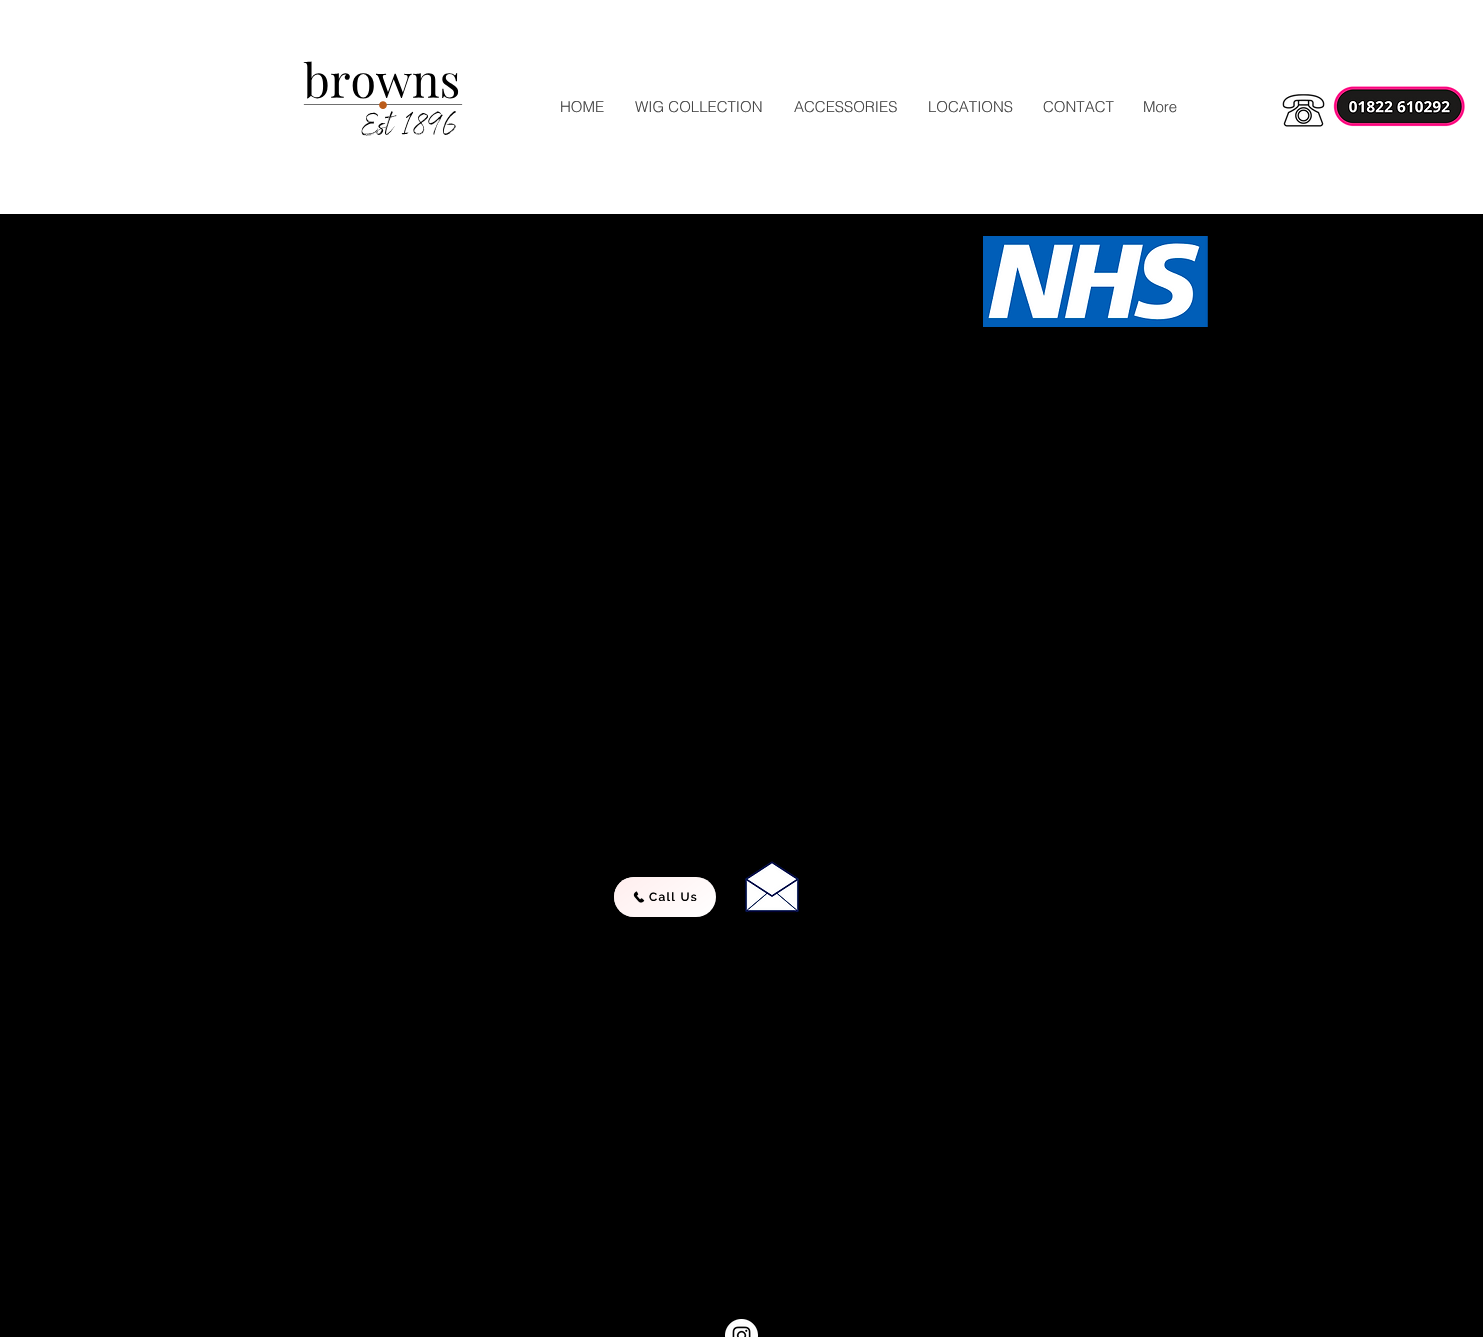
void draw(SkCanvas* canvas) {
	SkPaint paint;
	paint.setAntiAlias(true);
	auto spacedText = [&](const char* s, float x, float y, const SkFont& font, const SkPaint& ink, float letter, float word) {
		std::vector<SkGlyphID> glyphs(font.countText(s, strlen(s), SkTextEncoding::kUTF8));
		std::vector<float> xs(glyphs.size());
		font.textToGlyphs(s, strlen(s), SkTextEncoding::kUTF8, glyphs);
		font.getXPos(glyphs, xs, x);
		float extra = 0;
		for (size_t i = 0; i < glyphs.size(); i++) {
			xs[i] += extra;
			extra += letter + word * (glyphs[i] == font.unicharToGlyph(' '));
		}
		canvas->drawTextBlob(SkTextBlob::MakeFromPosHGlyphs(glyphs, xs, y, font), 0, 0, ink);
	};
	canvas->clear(0xffffffff);
	canvas->drawImageRect(SkImages::DeferredFromEncodedData(SkData::MakeFromFileName("img1.png")), SkRect::MakeXYWH(303, 61, 160, 75), SkSamplingOptions());
	SkFont f1(fontMgr->matchFamilyStyle("helvetica", SkFontStyle(300, SkFontStyle::kNormal_Width, SkFontStyle::kUpright_Slant)), 15);
	f1.setSubpixel(true);
	paint.setColor(0xff444444);
	canvas->drawString("HOME", 560, 112, f1, paint);
	canvas->drawString("WIG COLLECTION", 635, 112, f1, paint);
	canvas->drawString("ACCESSORIES", 794, 112, f1, paint);
	canvas->drawString("LOCATIONS", 928, 112, f1, paint);
	canvas->drawString("CONTACT", 1043, 112, f1, paint);
	canvas->drawString("More", 1143, 112, f1, paint);
	canvas->drawImageRect(SkImages::DeferredFromEncodedData(SkData::MakeFromFileName("img2.png")), SkRect::MakeXYWH(1282, 86, 183, 41), SkSamplingOptions());
	paint.setColor(0xff000000);
	canvas->drawRect(SkRect::MakeXYWH(0, 214, 1483, 1123), paint);
	canvas->drawImageRect(SkImages::DeferredFromEncodedData(SkData::MakeFromFileName("img3.png")), SkRect::MakeXYWH(983, 236, 225, 91), SkSamplingOptions());
	paint.setColor(0xffffffff);
	canvas->drawRoundRect(SkRect::MakeXYWH(614, 877, 102, 40), 20, 20, paint);
	{
		const SkColor colors[] = {0xffffeeee, 0x00ffeeee};
		const float stops[] = {0, 1};
		const SkPoint ends[] = {{639, 860}, {691, 934}};
		paint.setShader(SkGradientShader::MakeLinear(ends, colors, stops, 2, SkTileMode::kClamp));
		paint.setAlpha(255);
	}
	canvas->drawRoundRect(SkRect::MakeXYWH(614, 877, 102, 40), 20, 20, paint);
	canvas->drawImageRect(SkImages::DeferredFromEncodedData(SkData::MakeFromFileName("img4.png")), SkRect::MakeXYWH(633, 891, 12, 12), SkSamplingOptions());
	SkFont f2(fontMgr->matchFamilyStyle("Raleway", SkFontStyle(600, SkFontStyle::kNormal_Width, SkFontStyle::kUpright_Slant)), 12);
	f2.setSubpixel(true);
	paint.setShader(nullptr);
	paint.setColor(0xff000000);
	spacedText("Call Us", 649, 901, f2, paint, 1.25, 0);
	canvas->drawImageRect(SkImages::DeferredFromEncodedData(SkData::MakeFromFileName("img5.png")), SkRect::MakeXYWH(745, 861, 54, 52), SkSamplingOptions());
	canvas->drawImageRect(SkImages::DeferredFromEncodedData(SkData::MakeFromFileName("img6.png")), SkRect::MakeXYWH(725, 1319, 33, 18), SkSamplingOptions());
}
